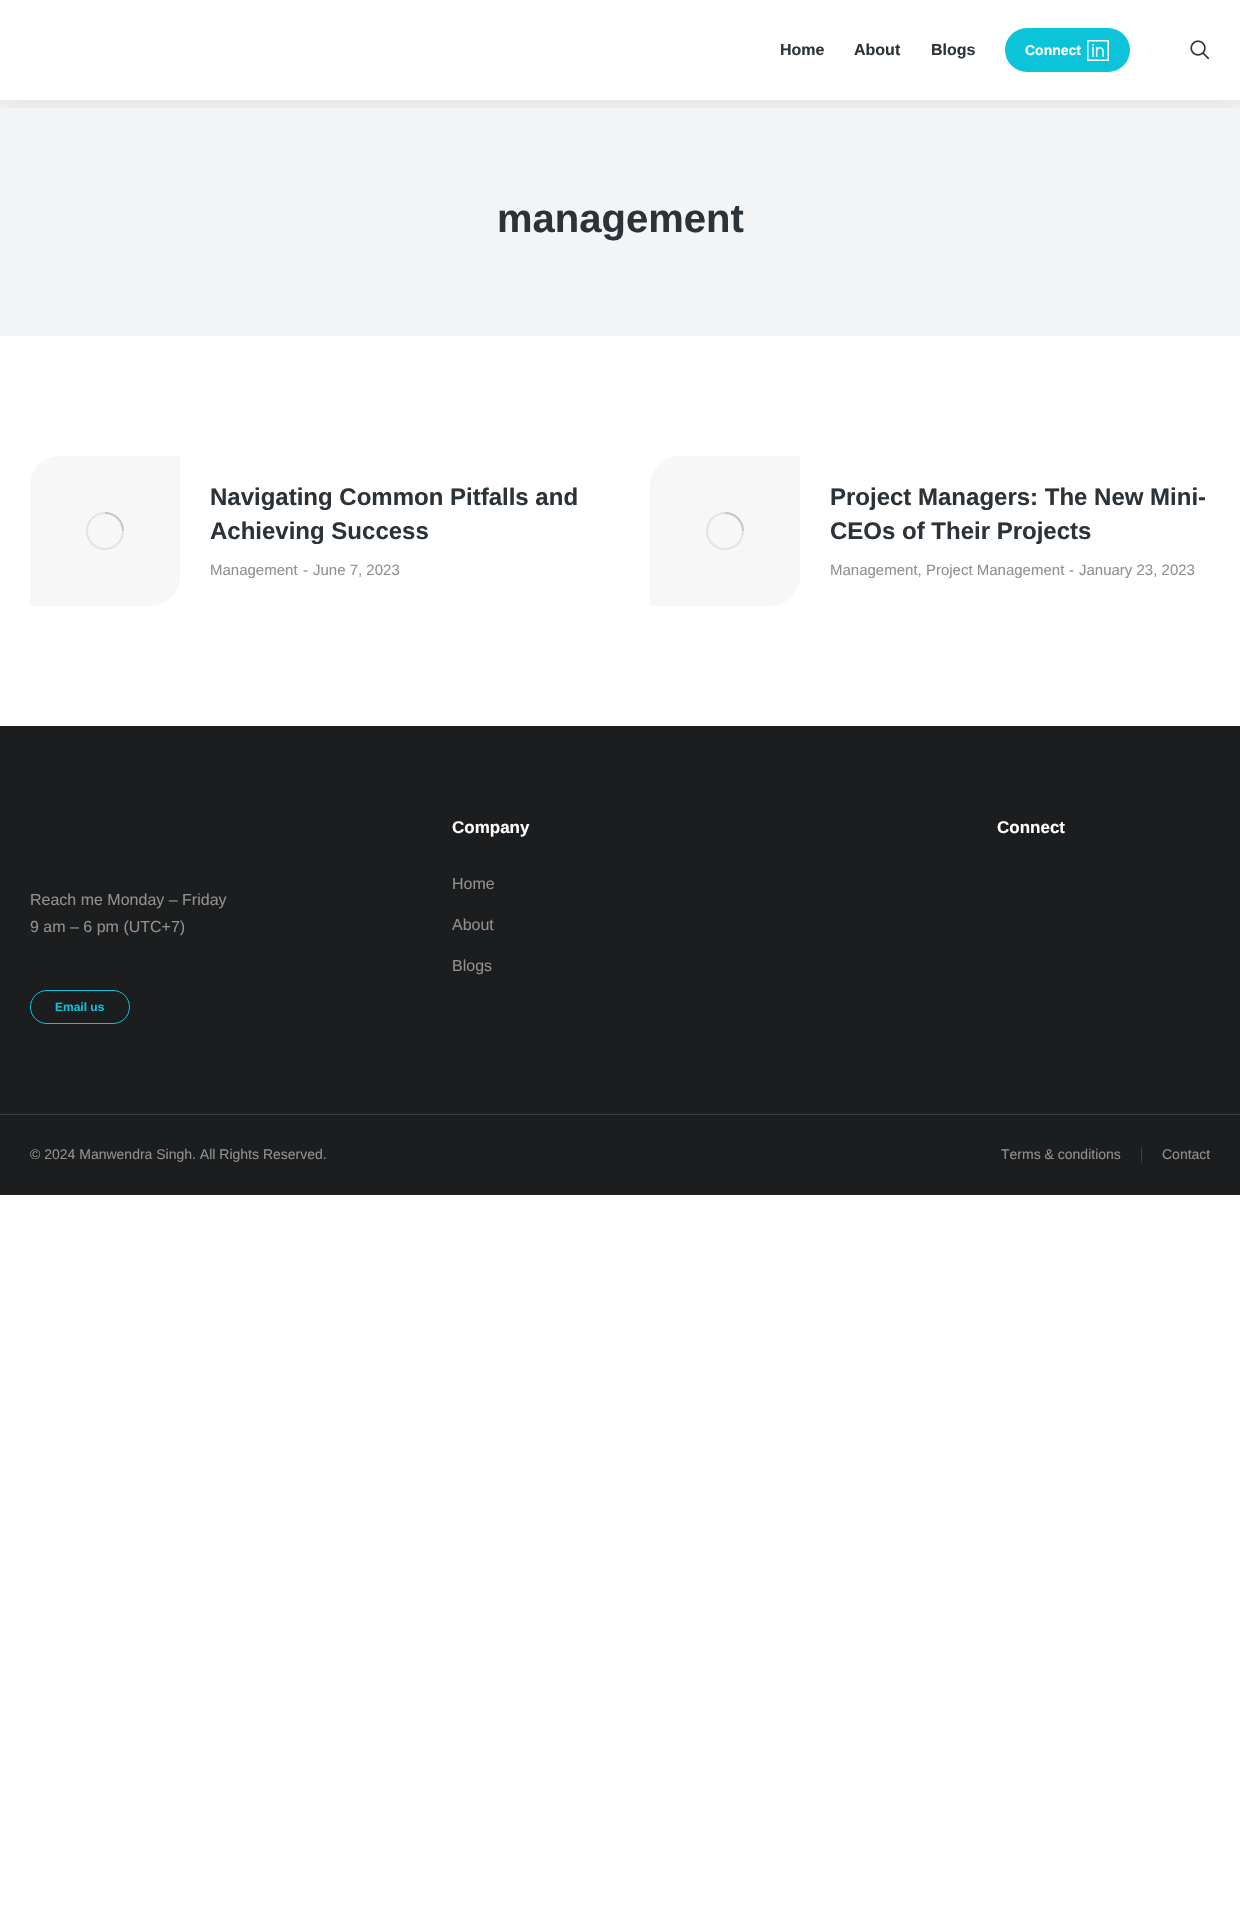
void draw(SkCanvas* canvas) {
	SkPaint paint;
	paint.setAntiAlias(true);
	auto svgPath = [&](const char* data, bool evenOdd = false) {
		SkPath result = *SkParsePath::FromSVGString(data);
		if (evenOdd) result.setFillType(SkPathFillType::kEvenOdd);
		return result;
	};
	canvas->clear(0xffffffff);
	paint.setColor(0xfff2f4f6);
	canvas->drawRect(SkRect::MakeXYWH(0, 100, 1240, 236), paint);
	canvas->save();
	canvas->clipRect(SkRect::MakeXYWH(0, 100, 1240, 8));
	paint.setColor(0x1a000000);
	paint.setMaskFilter(SkMaskFilter::MakeBlur(kNormal_SkBlurStyle, 10));
	canvas->drawRect(SkRect::MakeXYWH(0, 0, 1240, 100), paint);
	paint.setMaskFilter(nullptr);
	canvas->restore();
	SkFont f1(fontMgr->matchFamilyStyle("Liberation Sans", SkFontStyle::Bold()), 16);
	f1.setSubpixel(true);
	paint.setColor(0xff2c3338);
	canvas->drawString("Home", 780, 55, f1, paint);
	canvas->drawString("About", 854, 55, f1, paint);
	canvas->drawString("Blogs", 931, 55, f1, paint);
	paint.setColor(0xff0bc4d9);
	canvas->drawRoundRect(SkRect::MakeXYWH(1005, 28, 125, 44), 22, 22, paint);
	SkFont f2(fontMgr->matchFamilyStyle("Liberation Sans", SkFontStyle::Bold()), 14);
	f2.setSubpixel(true);
	paint.setColor(0xffffffff);
	canvas->drawString("Connect", 1025, 55, f2, paint);
	canvas->drawImageRect(SkImages::DeferredFromEncodedData(SkData::MakeFromFileName("img1.png")), SkRect::MakeXYWH(1087, 40, 22, 21), SkSamplingOptions());
	canvas->drawImageRect(SkImages::DeferredFromEncodedData(SkData::MakeFromFileName("img2.png")), SkRect::MakeXYWH(1190, 40, 20, 20), SkSamplingOptions());
	SkFont f3(fontMgr->matchFamilyStyle("Liberation Sans", SkFontStyle::Bold()), 40);
	f3.setSubpixel(true);
	paint.setColor(0xff2c3338);
	canvas->drawString("management", 497, 232, f3, paint);
	paint.setColor(0xfff7f7f7);
	canvas->drawPath(svgPath("M60 456H180V576C180 592.5 166.5 606 150 606H30V486C30 469.5 43.5 456 60 456Z"), paint);
	paint.setStroke(true);
	paint.setStrokeWidth(2);
	paint.setColor(0xffe3e3e3);
	canvas->drawCircle(105, 531, 18, paint);
	paint.setColor(0x40666666);
	canvas->drawPath(svgPath("M123 531C123 521 115 513 105 513"), paint);
	SkFont f4(fontMgr->matchFamilyStyle("Liberation Sans", SkFontStyle::Bold()), 24);
	f4.setSubpixel(true);
	paint.setStroke(false);
	paint.setColor(0xff2c3338);
	canvas->drawString("Navigating Common Pitfalls and", 210, 505, f4, paint);
	canvas->drawString("Achieving Success", 210, 539, f4, paint);
	SkFont f5(fontMgr->matchFamilyStyle("Liberation Sans", SkFontStyle::Normal()), 15);
	f5.setSubpixel(true);
	paint.setColor(0xff909090);
	canvas->drawString("Management", 210, 575, f5, paint);
	canvas->drawString("-", 303, 575, f5, paint);
	canvas->drawString("June 7, 2023", 313, 575, f5, paint);
	paint.setColor(0xfff7f7f7);
	canvas->drawPath(svgPath("M680 456H800V576C800 592.5 786.5 606 770 606H650V486C650 469.5 663.5 456 680 456Z"), paint);
	paint.setStroke(true);
	paint.setColor(0xffe3e3e3);
	canvas->drawCircle(725, 531, 18, paint);
	paint.setColor(0x40666666);
	canvas->drawPath(svgPath("M743 531C743 521 735 513 725 513"), paint);
	paint.setStroke(false);
	paint.setColor(0xff2c3338);
	canvas->drawString("Project Managers: The New Mini-", 830, 505, f4, paint);
	canvas->drawString("CEOs of Their Projects", 830, 539, f4, paint);
	paint.setColor(0xff909090);
	canvas->drawString("Management, Project Management", 830, 575, f5, paint);
	canvas->drawString("-", 1069, 575, f5, paint);
	canvas->drawString("January 23, 2023", 1079, 575, f5, paint);
	paint.setColor(0xff1b1d1f);
	canvas->drawRect(SkRect::MakeXYWH(0, 726, 1240, 388), paint);
	SkFont f6(fontMgr->matchFamilyStyle("Liberation Sans", SkFontStyle::Bold()), 17);
	f6.setSubpixel(true);
	paint.setColor(0xffffffff);
	canvas->drawString("Company", 452, 833, f6, paint);
	SkFont f7(fontMgr->matchFamilyStyle("Liberation Sans", SkFontStyle::Normal()), 16);
	f7.setSubpixel(true);
	paint.setColor(0xff909090);
	canvas->drawString("Home", 452, 889, f7, paint);
	canvas->drawString("About", 452, 930, f7, paint);
	canvas->drawString("Blogs", 452, 971, f7, paint);
	paint.setColor(0xffffffff);
	canvas->drawString("Connect", 997, 833, f6, paint);
	paint.setColor(0xff909090);
	canvas->drawString("Reach me Monday – Friday", 30, 905, f7, paint);
	canvas->drawString("9 am – 6 pm (UTC+7)", 30, 932, f7, paint);
	paint.setStroke(true);
	paint.setStrokeWidth(1);
	paint.setColor(0xff0bc4d9);
	canvas->drawRoundRect(SkRect::MakeXYWH(30.5, 990.5, 99, 33), 16.5, 16.5, paint);
	SkFont f8(fontMgr->matchFamilyStyle("Liberation Sans", SkFontStyle::Bold()), 12);
	f8.setSubpixel(true);
	paint.setStroke(false);
	canvas->drawString("Email us", 55, 1011, f8, paint);
	paint.setColor(0xff1b1d1f);
	canvas->drawRect(SkRect::MakeXYWH(0, 1115, 1240, 80), paint);
	paint.setColor(0xff3b3d3e);
	canvas->drawRect(SkRect::MakeXYWH(0, 1114, 1240, 1), paint);
	SkFont f9(fontMgr->matchFamilyStyle("Liberation Sans", SkFontStyle::Normal()), 14);
	f9.setSubpixel(true);
	paint.setColor(0xff909090);
	canvas->drawString("© 2024 Manwendra Singh. All Rights Reserved.", 30, 1159, f9, paint);
	canvas->drawString("Terms & conditions", 1001, 1159, f9, paint);
	paint.setColor(0xff3b3d3e);
	canvas->drawRect(SkRect::MakeXYWH(1141, 1147, 1, 16), paint);
	paint.setColor(0xff909090);
	canvas->drawString("Contact", 1162, 1159, f9, paint);
}
